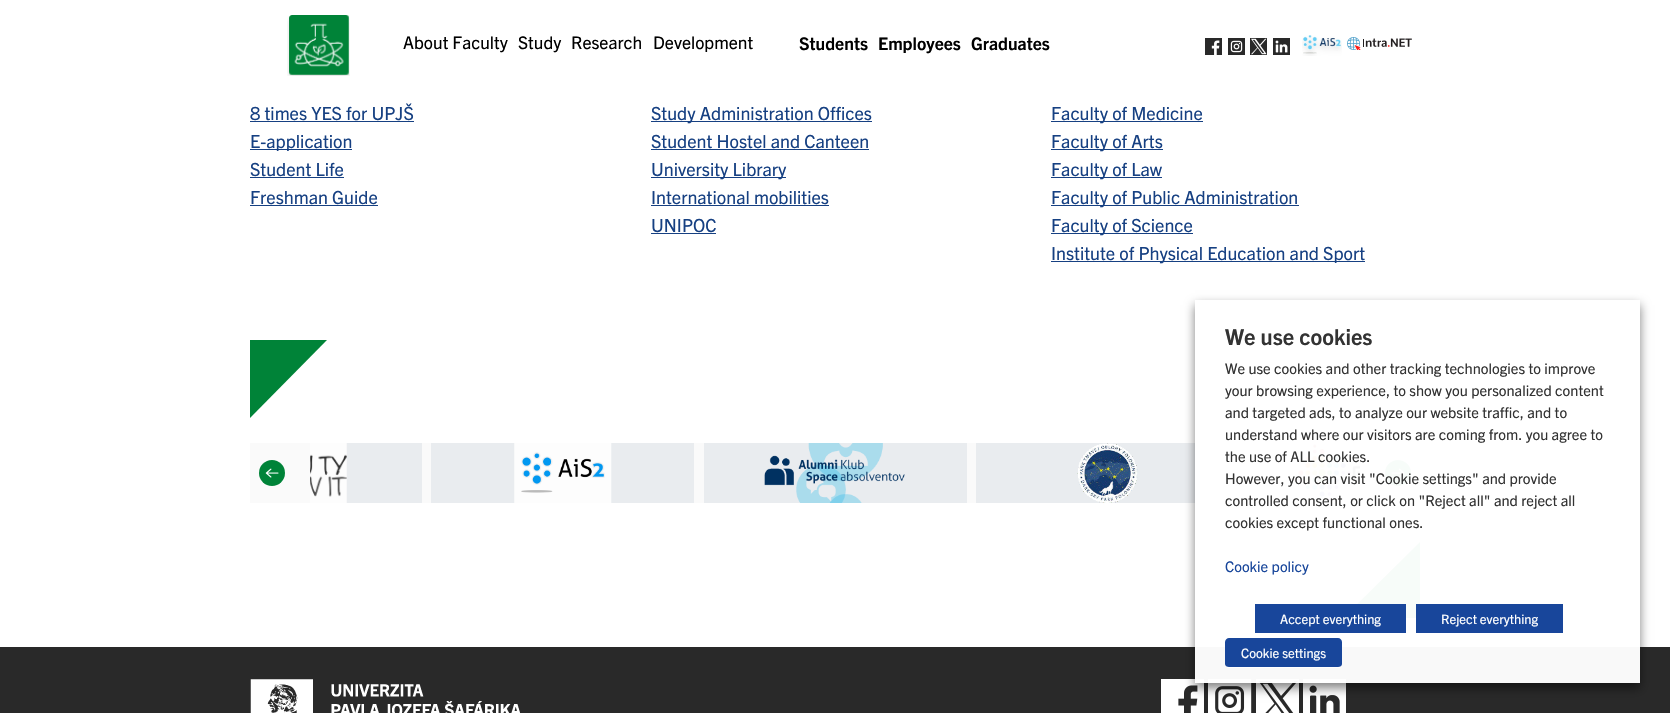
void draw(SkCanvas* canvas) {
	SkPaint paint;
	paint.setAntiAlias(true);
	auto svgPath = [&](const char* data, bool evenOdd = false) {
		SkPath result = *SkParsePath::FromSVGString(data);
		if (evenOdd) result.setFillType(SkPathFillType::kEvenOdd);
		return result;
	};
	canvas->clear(0xffffffff);
	canvas->drawImageRect(SkImages::DeferredFromEncodedData(SkData::MakeFromFileName("img1.png")), SkRect::MakeXYWH(287, 15, 63, 61), SkSamplingOptions());
	SkFont f1(fontMgr->matchFamilyStyle("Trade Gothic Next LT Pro", SkFontStyle::Normal()), 17.5);
	f1.setSubpixel(true);
	paint.setColor(0xff000000);
	canvas->drawString("About Faculty", 403, 49, f1, paint);
	canvas->drawString("Study", 518, 49, f1, paint);
	canvas->drawString("Research", 571, 49, f1, paint);
	canvas->drawString("Development", 653, 49, f1, paint);
	SkFont f2(fontMgr->matchFamilyStyle("Trade Gothic Next LT Pro", SkFontStyle::Bold()), 17.5);
	f2.setSubpixel(true);
	canvas->drawString("Students", 799, 50, f2, paint);
	canvas->drawString("Employees", 878, 50, f2, paint);
	canvas->drawString("Graduates", 971, 50, f2, paint);
	canvas->drawImageRect(SkImages::DeferredFromEncodedData(SkData::MakeFromFileName("img2.png")), SkRect::MakeXYWH(1205, 38, 17, 17), SkSamplingOptions());
	canvas->drawImageRect(SkImages::DeferredFromEncodedData(SkData::MakeFromFileName("img3.png")), SkRect::MakeXYWH(1228, 38, 17, 17), SkSamplingOptions());
	canvas->drawImageRect(SkImages::DeferredFromEncodedData(SkData::MakeFromFileName("img4.png")), SkRect::MakeXYWH(1250, 38, 17, 17), SkSamplingOptions());
	canvas->drawImageRect(SkImages::DeferredFromEncodedData(SkData::MakeFromFileName("img5.png")), SkRect::MakeXYWH(1273, 38, 17, 17), SkSamplingOptions());
	canvas->drawImageRect(SkImages::DeferredFromEncodedData(SkData::MakeFromFileName("img6.png")), SkRect::MakeXYWH(1302, 35, 40, 21), SkSamplingOptions());
	canvas->drawImageRect(SkImages::DeferredFromEncodedData(SkData::MakeFromFileName("img7.png")), SkRect::MakeXYWH(1347, 37, 65, 13), SkSamplingOptions());
	SkFont f3(fontMgr->matchFamilyStyle("Trade Gothic Next LT Pro", SkFontStyle::Normal()), 18);
	f3.setSubpixel(true);
	paint.setColor(0xff164082);
	canvas->drawString("8 times YES for UPJŠ", 250, 120, f3, paint);
	canvas->drawRect(SkRect::MakeXYWH(250, 121, 164, 1), paint);
	canvas->drawRect(SkRect::MakeXYWH(250, 149, 102, 1), paint);
	canvas->drawString("E-application", 250, 148, f3, paint);
	canvas->drawString("Student Life", 250, 176, f3, paint);
	canvas->drawRect(SkRect::MakeXYWH(250, 177, 94, 1), paint);
	canvas->drawString("Freshman Guide", 250, 204, f3, paint);
	canvas->drawRect(SkRect::MakeXYWH(250, 205, 128, 1), paint);
	canvas->drawRect(SkRect::MakeXYWH(651, 121, 221, 1), paint);
	canvas->drawString("Study Administration Offices", 651, 120, f3, paint);
	canvas->drawString("Student Hostel and Canteen", 651, 148, f3, paint);
	canvas->drawRect(SkRect::MakeXYWH(651, 149, 218, 1), paint);
	canvas->drawRect(SkRect::MakeXYWH(651, 177, 135, 1), paint);
	canvas->drawString("University Library", 651, 176, f3, paint);
	canvas->drawString("International mobilities", 651, 204, f3, paint);
	canvas->drawRect(SkRect::MakeXYWH(651, 205, 178, 1), paint);
	canvas->drawString("UNIPOC", 651, 232, f3, paint);
	canvas->drawRect(SkRect::MakeXYWH(651, 233, 65, 1), paint);
	canvas->drawRect(SkRect::MakeXYWH(1051, 121, 152, 1), paint);
	canvas->drawString("Faculty of Medicine", 1051, 120, f3, paint);
	canvas->drawRect(SkRect::MakeXYWH(1051, 149, 112, 1), paint);
	canvas->drawString("Faculty of Arts", 1051, 148, f3, paint);
	canvas->drawRect(SkRect::MakeXYWH(1051, 177, 111, 1), paint);
	canvas->drawString("Faculty of Law", 1051, 176, f3, paint);
	canvas->drawRect(SkRect::MakeXYWH(1051, 205, 248, 1), paint);
	canvas->drawString("Faculty of Public Administration", 1051, 204, f3, paint);
	canvas->drawRect(SkRect::MakeXYWH(1051, 233, 142, 1), paint);
	canvas->drawString("Faculty of Science", 1051, 232, f3, paint);
	canvas->drawRect(SkRect::MakeXYWH(1051, 261, 314, 1), paint);
	canvas->drawString("Institute of Physical Education and Sport", 1051, 260, f3, paint);
	paint.setColor(0xff008338);
	canvas->drawPath(svgPath("M250 340H327L250 418Z"), paint);
	paint.setColor(0xfffafafa);
	canvas->drawRect(SkRect::MakeXYWH(250, 443, 1170, 60), paint);
	paint.setColor(0xff008338);
	canvas->drawCircle(272, 473, 13, paint);
	canvas->drawImageRect(SkImages::DeferredFromEncodedData(SkData::MakeFromFileName("img8.png")), SkRect::MakeXYWH(265, 468, 14, 10), SkSamplingOptions());
	paint.setColor(0xffe9ecef);
	canvas->drawRect(SkRect::MakeXYWH(346, 443, 76, 60), paint);
	canvas->drawImageRect(SkImages::DeferredFromEncodedData(SkData::MakeFromFileName("img9.png")), SkRect::MakeXYWH(310, 443, 37, 60), SkSamplingOptions());
	canvas->drawRect(SkRect::MakeXYWH(431, 443, 263, 60), paint);
	canvas->drawImageRect(SkImages::DeferredFromEncodedData(SkData::MakeFromFileName("img10.png")), SkRect::MakeXYWH(514, 443, 98, 60), SkSamplingOptions());
	canvas->drawRect(SkRect::MakeXYWH(704, 443, 263, 60), paint);
	canvas->drawImageRect(SkImages::DeferredFromEncodedData(SkData::MakeFromFileName("img11.png")), SkRect::MakeXYWH(764, 443, 141, 60), SkSamplingOptions());
	canvas->drawRect(SkRect::MakeXYWH(976, 443, 263, 60), paint);
	canvas->drawImageRect(SkImages::DeferredFromEncodedData(SkData::MakeFromFileName("img12.png")), SkRect::MakeXYWH(1077, 443, 61, 60), SkSamplingOptions());
	canvas->drawRect(SkRect::MakeXYWH(1249, 443, 111, 60), paint);
	canvas->drawImageRect(SkImages::DeferredFromEncodedData(SkData::MakeFromFileName("img13.png")), SkRect::MakeXYWH(1293, 444, 67, 58), SkSamplingOptions());
	paint.setColor(0xff008338);
	canvas->drawCircle(1398, 473, 13, paint);
	canvas->drawImageRect(SkImages::DeferredFromEncodedData(SkData::MakeFromFileName("img14.png")), SkRect::MakeXYWH(1391, 468, 14, 10), SkSamplingOptions());
	canvas->drawPath(svgPath("M1420 618H1343L1420 542Z"), paint);
	paint.setColor(0xff292929);
	canvas->drawRect(SkRect::MakeXYWH(0, 647, 1670, 66), paint);
	canvas->drawImageRect(SkImages::DeferredFromEncodedData(SkData::MakeFromFileName("img15.png")), SkRect::MakeXYWH(250, 679, 270, 34), SkSamplingOptions());
	canvas->drawImageRect(SkImages::DeferredFromEncodedData(SkData::MakeFromFileName("img16.png")), SkRect::MakeXYWH(1161, 679, 43, 34), SkSamplingOptions());
	canvas->drawImageRect(SkImages::DeferredFromEncodedData(SkData::MakeFromFileName("img17.png")), SkRect::MakeXYWH(1208, 679, 44, 34), SkSamplingOptions());
	canvas->drawImageRect(SkImages::DeferredFromEncodedData(SkData::MakeFromFileName("img18.png")), SkRect::MakeXYWH(1256, 679, 43, 34), SkSamplingOptions());
	canvas->drawImageRect(SkImages::DeferredFromEncodedData(SkData::MakeFromFileName("img19.png")), SkRect::MakeXYWH(1303, 679, 43, 34), SkSamplingOptions());
	canvas->save();
	canvas->clipPath(svgPath("M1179 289H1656V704H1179ZM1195 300H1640V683H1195Z", true), true);
	paint.setColor(0x80000000);
	paint.setMaskFilter(SkMaskFilter::MakeBlur(kNormal_SkBlurStyle, 5));
	canvas->drawRect(SkRect::MakeXYWH(1195, 305, 445, 383), paint);
	paint.setMaskFilter(nullptr);
	canvas->restore();
	paint.setColor(0xf7ffffff);
	canvas->drawRect(SkRect::MakeXYWH(1195, 443, 445, 240), paint);
	SkFont f4(fontMgr->matchFamilyStyle("Trade Gothic Next LT Pro", SkFontStyle::Bold()), 22);
	f4.setSubpixel(true);
	paint.setColor(0xff333333);
	canvas->drawString("We use cookies", 1225, 345, f4, paint);
	SkFont f5(fontMgr->matchFamilyStyle("Trade Gothic Next LT Pro", SkFontStyle::Normal()), 14.7);
	f5.setSubpixel(true);
	canvas->drawString("We use cookies and other tracking technologies to improve", 1225, 374, f5, paint);
	canvas->drawString("your browsing experience, to show you personalized content", 1225, 396, f5, paint);
	canvas->drawString("and targeted ads, to analyze our website traffic, and to", 1225, 418, f5, paint);
	canvas->drawString("understand where our visitors are coming from. you agree to", 1225, 440, f5, paint);
	canvas->drawString("the use of ALL cookies.", 1225, 462, f5, paint);
	canvas->drawString("However, you can visit \"Cookie settings\" and provide", 1225, 484, f5, paint);
	canvas->drawString("controlled consent, or click on \"Reject all\" and reject all", 1225, 506, f5, paint);
	canvas->drawString("cookies except functional ones.", 1225, 528, f5, paint);
	paint.setColor(0xff18469b);
	canvas->drawString("Cookie policy", 1225, 572, f5, paint);
	canvas->drawRect(SkRect::MakeXYWH(1255, 604, 151, 29), paint);
	SkFont f6(fontMgr->matchFamilyStyle("Trade Gothic Next LT Pro", SkFontStyle::Normal()), 13);
	f6.setSubpixel(true);
	paint.setColor(0xffffffff);
	canvas->drawString("Accept everything", 1280, 624, f6, paint);
	paint.setColor(0xff18469b);
	canvas->drawRect(SkRect::MakeXYWH(1416, 604, 147, 29), paint);
	paint.setColor(0xffffffff);
	canvas->drawString("Reject everything", 1441, 624, f6, paint);
	paint.setColor(0xff18469b);
	canvas->drawPath(svgPath("M1229 638H1338C1340 638 1342 640 1342 642V664C1342 666 1340 667 1338 667H1229C1227 667 1225 666 1225 664V642C1225 640 1227 638 1229 638Z"), paint);
	paint.setColor(0xffffffff);
	canvas->drawRect(SkRect::MakeXYWH(1227, 667, 113, 1), paint);
	canvas->drawString("Cookie settings", 1241, 658, f6, paint);
}
